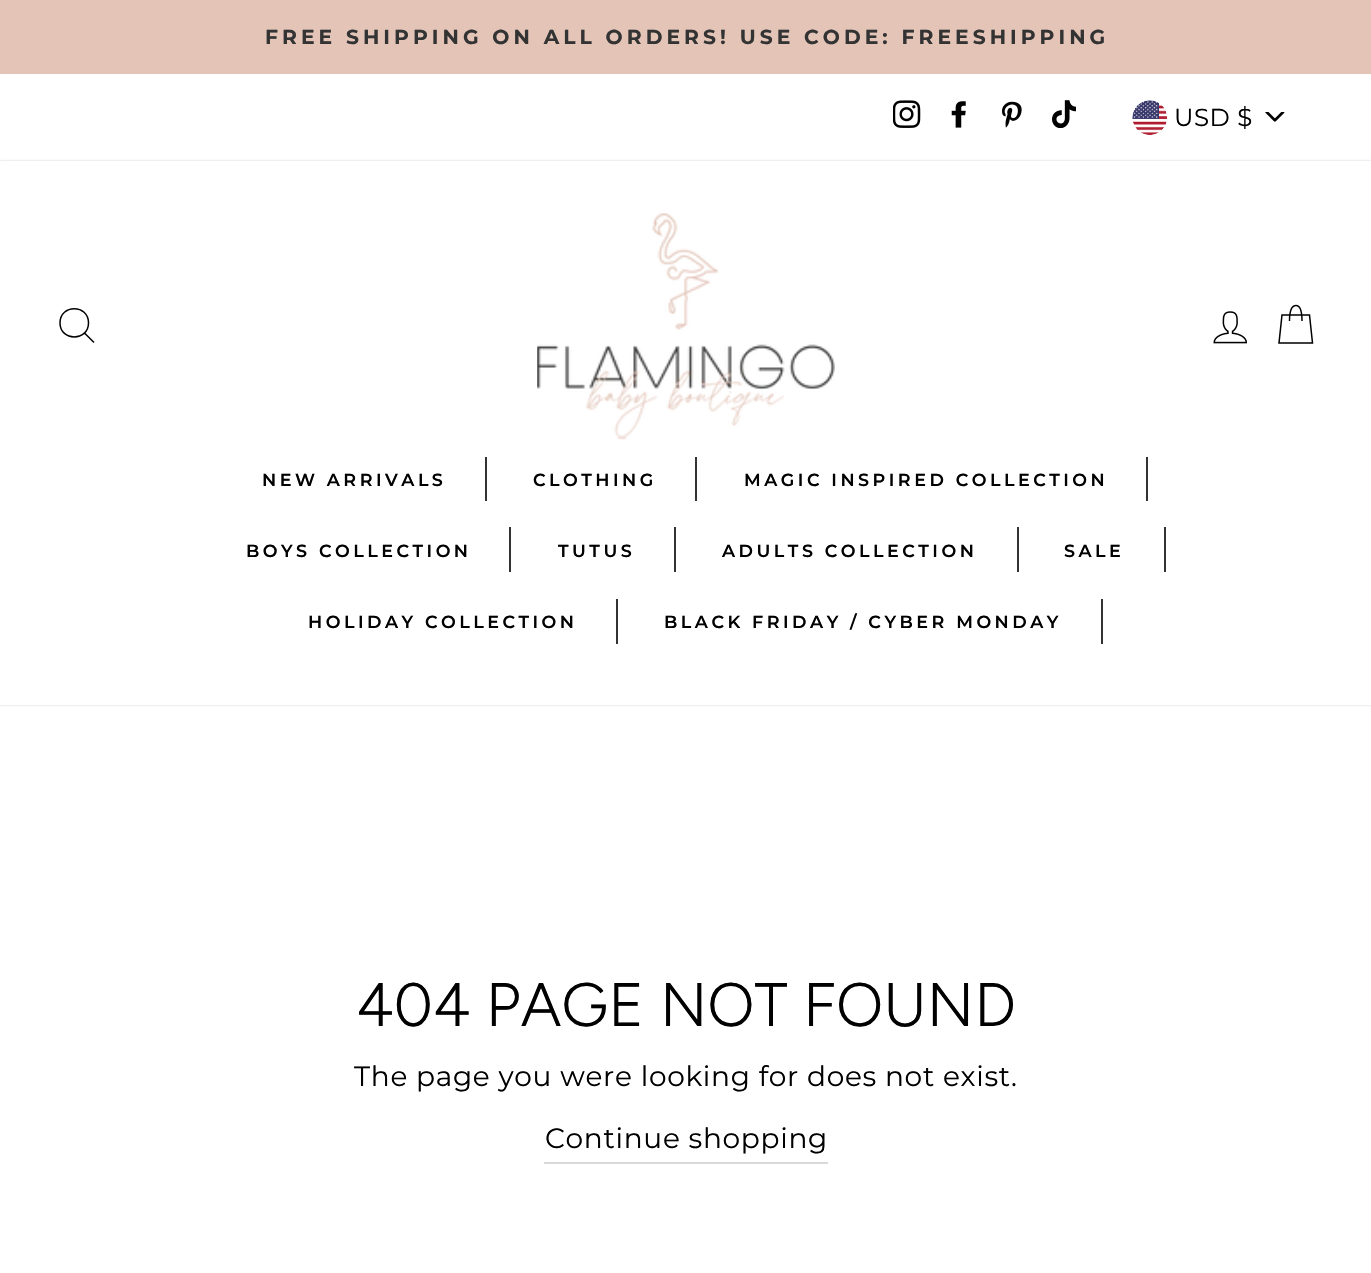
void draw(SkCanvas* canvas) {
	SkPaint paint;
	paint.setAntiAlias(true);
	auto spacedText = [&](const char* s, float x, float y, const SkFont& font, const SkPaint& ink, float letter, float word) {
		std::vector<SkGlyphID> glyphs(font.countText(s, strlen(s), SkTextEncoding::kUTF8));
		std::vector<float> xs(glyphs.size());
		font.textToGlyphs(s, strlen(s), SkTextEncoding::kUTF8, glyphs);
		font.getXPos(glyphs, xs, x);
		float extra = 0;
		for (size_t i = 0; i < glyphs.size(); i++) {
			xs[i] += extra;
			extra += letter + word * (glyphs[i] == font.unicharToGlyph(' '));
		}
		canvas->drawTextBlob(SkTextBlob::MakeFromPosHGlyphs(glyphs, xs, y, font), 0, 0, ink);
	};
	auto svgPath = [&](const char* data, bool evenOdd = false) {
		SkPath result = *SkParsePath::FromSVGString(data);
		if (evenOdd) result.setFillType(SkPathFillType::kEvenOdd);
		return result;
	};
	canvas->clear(0xffffffff);
	paint.setColor(0xffe3c4b7);
	canvas->drawRect(SkRect::MakeXYWH(0, 0, 1371, 74), paint);
	SkFont f1(fontMgr->matchFamilyStyle("Montserrat", SkFontStyle::Bold()), 20.25);
	f1.setSubpixel(true);
	paint.setColor(0xff333333);
	spacedText("FREE SHIPPING ON ALL ORDERS! USE CODE: FREESHIPPING", 265, 44, f1, paint, 4.05, 0);
	canvas->drawImageRect(SkImages::DeferredFromEncodedData(SkData::MakeFromFileName("img1.png")), SkRect::MakeXYWH(893, 100, 28, 28), SkSamplingOptions());
	canvas->drawImageRect(SkImages::DeferredFromEncodedData(SkData::MakeFromFileName("img2.png")), SkRect::MakeXYWH(951, 101, 15, 27), SkSamplingOptions());
	canvas->drawImageRect(SkImages::DeferredFromEncodedData(SkData::MakeFromFileName("img3.png")), SkRect::MakeXYWH(1002, 101, 20, 27), SkSamplingOptions());
	canvas->drawImageRect(SkImages::DeferredFromEncodedData(SkData::MakeFromFileName("img4.png")), SkRect::MakeXYWH(1052, 100, 24, 28), SkSamplingOptions());
	canvas->drawImageRect(SkImages::DeferredFromEncodedData(SkData::MakeFromFileName("img5.png")), SkRect::MakeXYWH(1265, 112, 20, 10), SkSamplingOptions());
	canvas->drawImageRect(SkImages::DeferredFromEncodedData(SkData::MakeFromFileName("img6.png")), SkRect::MakeXYWH(1132, 100, 36, 36), SkSamplingOptions());
	SkFont f2(fontMgr->matchFamilyStyle("Montserrat", SkFontStyle::Normal()), 24.5);
	f2.setSubpixel(true);
	paint.setColor(0xff000000);
	spacedText("USD $", 1174, 126, f2, paint, 0.5, 0);
	canvas->save();
	canvas->clipPath(svgPath("M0 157H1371V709H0ZM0 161H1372V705H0Z", true), true);
	paint.setColor(0x33000000);
	paint.setMaskFilter(SkMaskFilter::MakeBlur(kNormal_SkBlurStyle, 1));
	canvas->drawRect(SkRect::MakeXYWH(0, 161, 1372, 544), paint);
	paint.setMaskFilter(nullptr);
	canvas->restore();
	paint.setStroke(true);
	paint.setStrokeWidth(1.5);
	paint.setColor(0xff000000);
	canvas->drawPath(svgPath("M88.5 323C88.5 341.5 60 341.5 60 323C60 304 88.5 304 88.5 323ZM94 342.5L84.5 333"), paint);
	canvas->drawImageRect(SkImages::DeferredFromEncodedData(SkData::MakeFromFileName("img7.png")), SkRect::MakeXYWH(537, 213, 298, 227), SkSamplingOptions());
	canvas->drawImageRect(SkImages::DeferredFromEncodedData(SkData::MakeFromFileName("img8.png")), SkRect::MakeXYWH(1213, 311, 34, 33), SkSamplingOptions());
	canvas->drawPath(svgPath("M1289.5 321C1289.5 309 1292.5 305.5 1296 305.5C1299 305.5 1302 309 1302 321M1282 315H1309.5L1312.5 343H1279Z"), paint);
	paint.setStroke(false);
	paint.setColor(0xff333333);
	canvas->drawRect(SkRect::MakeXYWH(485, 457, 2, 44), paint);
	SkFont f3(fontMgr->matchFamilyStyle("Montserrat", SkFontStyle(600, SkFontStyle::kNormal_Width, SkFontStyle::kUpright_Slant)), 17.5);
	f3.setSubpixel(true);
	paint.setColor(0xff000000);
	spacedText("NEW ARRIVALS", 262, 486, f3, paint, 3.5, 0);
	paint.setColor(0xff333333);
	canvas->drawRect(SkRect::MakeXYWH(695, 457, 2, 44), paint);
	paint.setColor(0xff000000);
	spacedText("CLOTHING", 533, 486, f3, paint, 3.5, 0);
	paint.setColor(0xff333333);
	canvas->drawRect(SkRect::MakeXYWH(1146, 457, 2, 44), paint);
	paint.setColor(0xff000000);
	spacedText("MAGIC INSPIRED COLLECTION", 744, 486, f3, paint, 3.5, 0);
	paint.setColor(0xff333333);
	canvas->drawRect(SkRect::MakeXYWH(509, 527, 2, 45), paint);
	paint.setColor(0xff000000);
	spacedText("BOYS COLLECTION", 246, 557, f3, paint, 3.5, 0);
	paint.setColor(0xff333333);
	canvas->drawRect(SkRect::MakeXYWH(674, 527, 2, 45), paint);
	paint.setColor(0xff000000);
	spacedText("TUTUS", 558, 557, f3, paint, 3.5, 0);
	paint.setColor(0xff333333);
	canvas->drawRect(SkRect::MakeXYWH(1017, 527, 2, 45), paint);
	paint.setColor(0xff000000);
	spacedText("ADULTS COLLECTION", 722, 557, f3, paint, 3.5, 0);
	paint.setColor(0xff333333);
	canvas->drawRect(SkRect::MakeXYWH(1164, 527, 2, 45), paint);
	paint.setColor(0xff000000);
	spacedText("SALE", 1064, 557, f3, paint, 3.5, 0);
	paint.setColor(0xff333333);
	canvas->drawRect(SkRect::MakeXYWH(616, 599, 2, 45), paint);
	paint.setColor(0xff000000);
	spacedText("HOLIDAY COLLECTION", 308, 628, f3, paint, 3.5, 0);
	paint.setColor(0xff333333);
	canvas->drawRect(SkRect::MakeXYWH(1101, 599, 2, 45), paint);
	paint.setColor(0xff000000);
	spacedText("BLACK FRIDAY / CYBER MONDAY", 664, 628, f3, paint, 3.5, 0);
	SkFont f4(fontMgr->matchFamilyStyle("Figtree", SkFontStyle(300, SkFontStyle::kNormal_Width, SkFontStyle::kUpright_Slant)), 61.25);
	f4.setSubpixel(true);
	canvas->drawString("404 PAGE NOT FOUND", 356, 1026, f4, paint);
	SkFont f5(fontMgr->matchFamilyStyle("Montserrat", SkFontStyle::Normal()), 28);
	f5.setSubpixel(true);
	spacedText("The page you were looking for does not exist.", 354, 1086, f5, paint, 0.7, 0);
	paint.setColor(0xffd9d9d9);
	canvas->drawRect(SkRect::MakeXYWH(544, 1162, 284, 2), paint);
	paint.setColor(0xff000000);
	spacedText("Continue shopping", 545, 1148, f5, paint, 0.7, 0);
}
